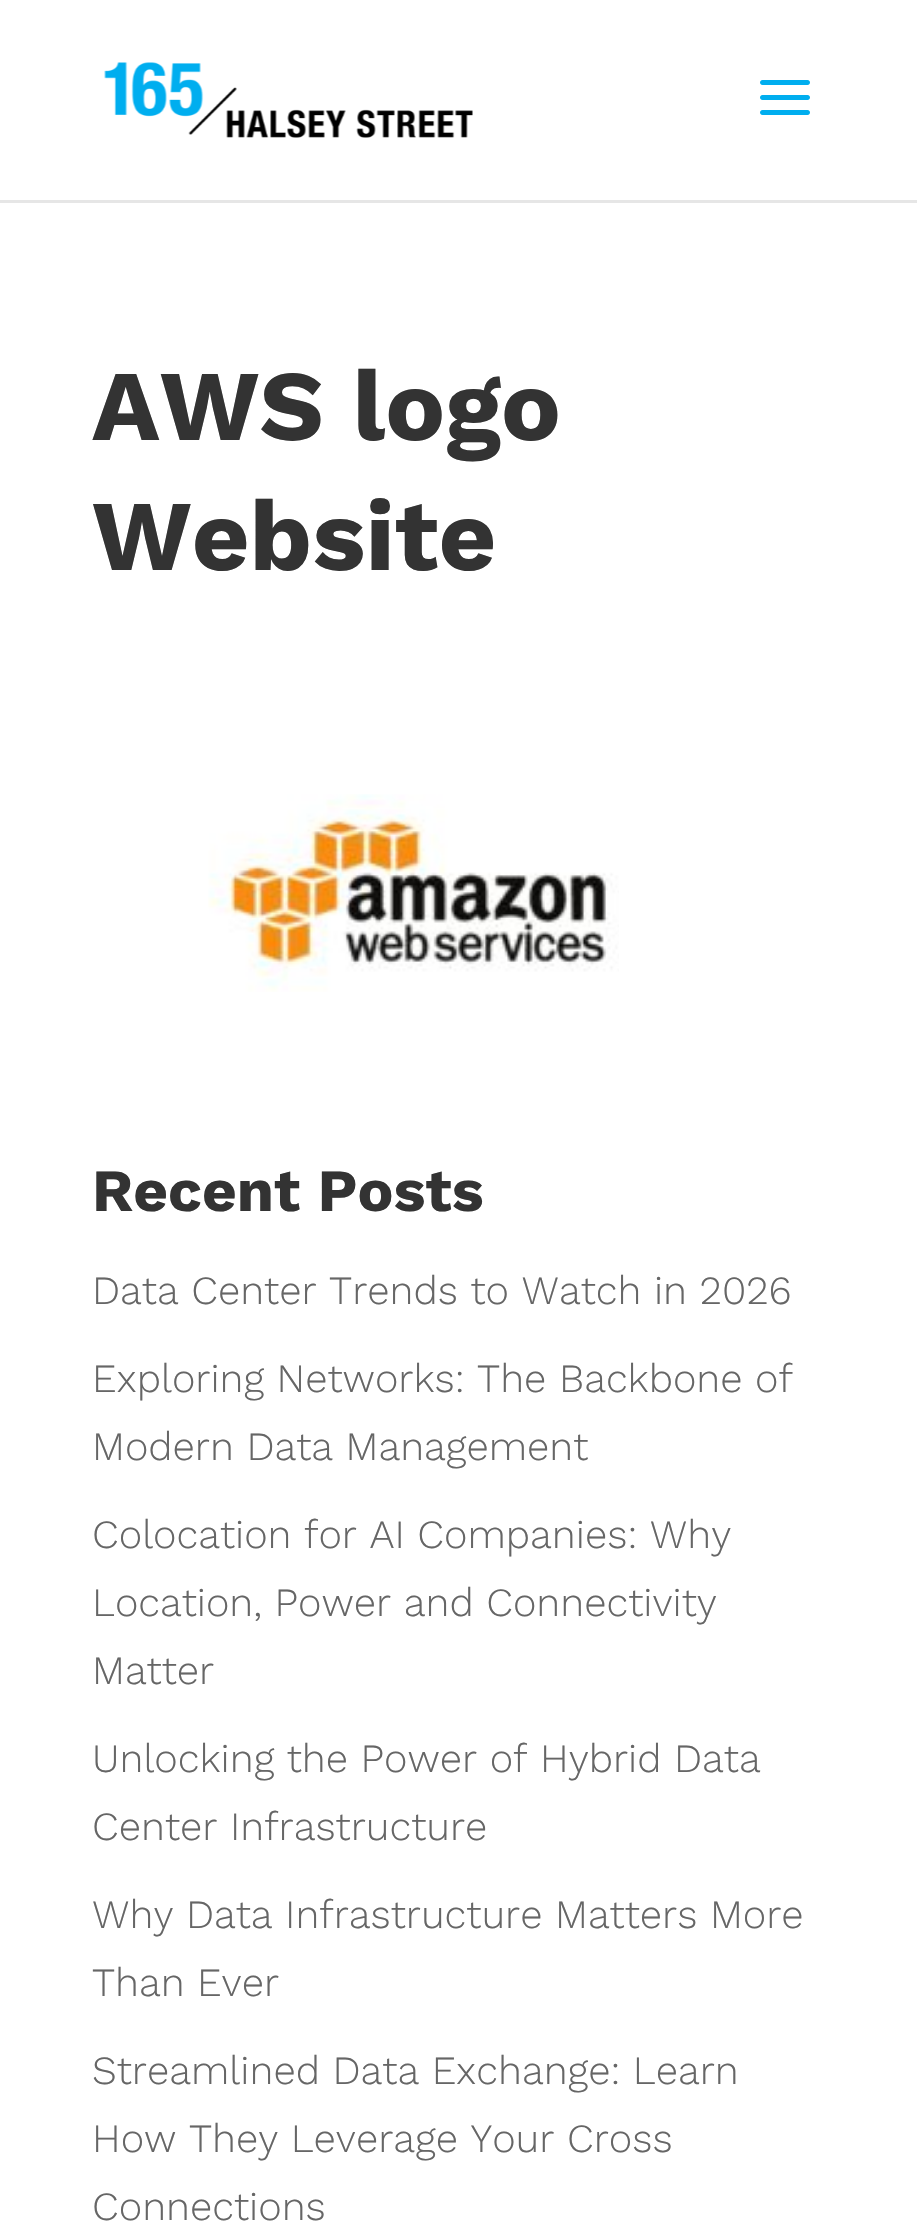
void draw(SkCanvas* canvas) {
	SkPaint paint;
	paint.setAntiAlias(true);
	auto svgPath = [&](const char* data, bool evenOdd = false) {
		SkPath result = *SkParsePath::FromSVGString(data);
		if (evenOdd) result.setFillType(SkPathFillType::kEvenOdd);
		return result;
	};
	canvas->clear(0xffffffff);
	paint.setColor(0xffe6e6e6);
	canvas->drawPath(svgPath("M0 200V203H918V3V200Z"), paint);
	canvas->drawImageRect(SkImages::DeferredFromEncodedData(SkData::MakeFromFileName("img1.png")), SkRect::MakeXYWH(104, 62, 369, 76), SkSamplingOptions());
	canvas->drawImageRect(SkImages::DeferredFromEncodedData(SkData::MakeFromFileName("img2.png")), SkRect::MakeXYWH(760, 80, 50, 35), SkSamplingOptions());
	SkFont f1(fontMgr->matchFamilyStyle("Work Sans", SkFontStyle::Bold()), 100);
	f1.setSubpixel(true);
	paint.setColor(0xff333333);
	canvas->drawString("AWS logo", 92, 440, f1, paint);
	canvas->drawString("Website", 92, 570, f1, paint);
	canvas->drawImageRect(SkImages::DeferredFromEncodedData(SkData::MakeFromFileName("img3.png")), SkRect::MakeXYWH(208, 794, 411, 198), SkSamplingOptions());
	SkFont f2(fontMgr->matchFamilyStyle("Work Sans", SkFontStyle::Bold()), 60);
	f2.setSubpixel(true);
	canvas->drawString("Recent Posts", 92, 1211, f2, paint);
	SkFont f3(fontMgr->matchFamilyStyle("Work Sans", SkFontStyle(300, SkFontStyle::kNormal_Width, SkFontStyle::kUpright_Slant)), 40);
	f3.setSubpixel(true);
	paint.setColor(0xff666666);
	canvas->drawString("Data Center Trends to Watch in 2026", 92, 1304, f3, paint);
	canvas->drawString("Exploring Networks: The Backbone of", 92, 1392, f3, paint);
	canvas->drawString("Modern Data Management", 92, 1460, f3, paint);
	canvas->drawString("Colocation for AI Companies: Why", 92, 1548, f3, paint);
	canvas->drawString("Location, Power and Connectivity", 92, 1616, f3, paint);
	canvas->drawString("Matter", 92, 1684, f3, paint);
	canvas->drawString("Unlocking the Power of Hybrid Data", 92, 1772, f3, paint);
	canvas->drawString("Center Infrastructure", 92, 1840, f3, paint);
	canvas->drawString("Why Data Infrastructure Matters More", 92, 1928, f3, paint);
	canvas->drawString("Than Ever", 92, 1996, f3, paint);
	canvas->drawString("Streamlined Data Exchange: Learn", 92, 2084, f3, paint);
	canvas->drawString("How They Leverage Your Cross", 92, 2152, f3, paint);
	canvas->drawString("Connections", 92, 2220, f3, paint);
}
